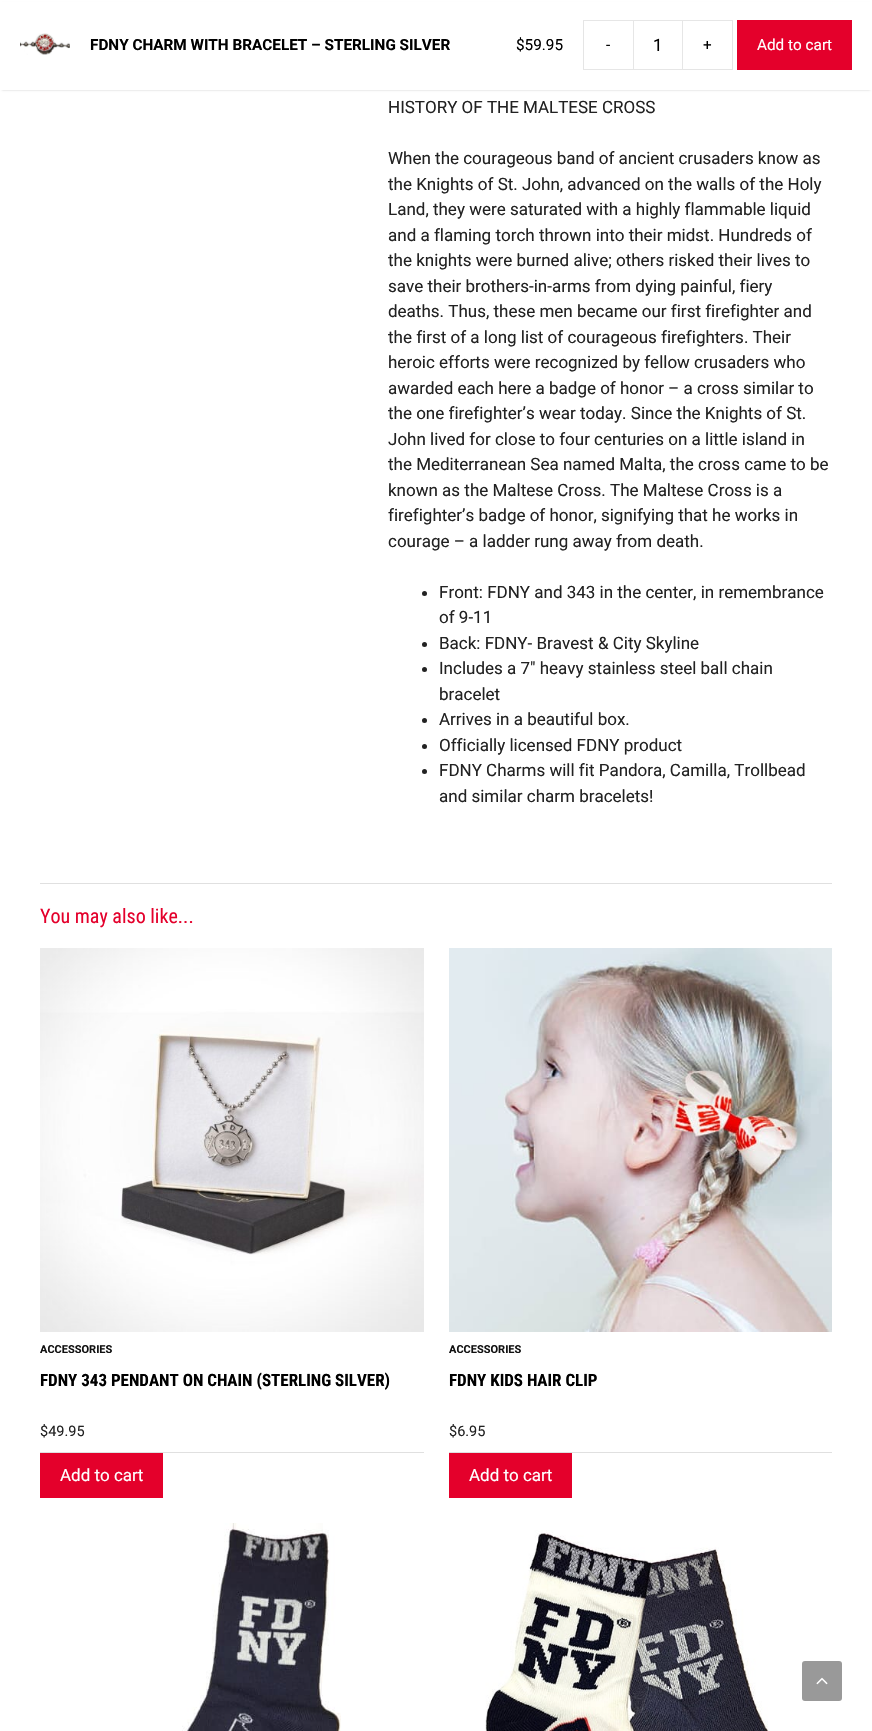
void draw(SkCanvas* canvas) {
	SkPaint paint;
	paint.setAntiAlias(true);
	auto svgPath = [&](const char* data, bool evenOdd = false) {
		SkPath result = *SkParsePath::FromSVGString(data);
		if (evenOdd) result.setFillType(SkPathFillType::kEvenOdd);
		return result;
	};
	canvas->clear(0xffffffff);
	paint.setColor(0x33000000);
	paint.setMaskFilter(SkMaskFilter::MakeBlur(kNormal_SkBlurStyle, 1));
	canvas->drawRect(SkRect::MakeXYWH(2, 4, 868, 86), paint);
	paint.setMaskFilter(nullptr);
	paint.setColor(0xffffffff);
	canvas->drawRect(SkRect::MakeXYWH(0, 2, 872, 88), paint);
	canvas->drawImageRect(SkImages::DeferredFromEncodedData(SkData::MakeFromFileName("img1.png")), SkRect::MakeXYWH(20, 33, 50, 22), SkSamplingOptions());
	SkFont f1(fontMgr->matchFamilyStyle("Roboto", SkFontStyle::Bold()), 15.3);
	f1.setSubpixel(true);
	paint.setColor(0xff000000);
	canvas->drawString("FDNY CHARM WITH BRACELET – STERLING SILVER", 90, 50, f1, paint);
	SkFont f2(fontMgr->matchFamilyStyle("Roboto", SkFontStyle::Normal()), 15.3);
	f2.setSubpixel(true);
	canvas->drawString("$59.95", 516, 50, f2, paint);
	paint.setColor(0xffe6e6e6);
	canvas->drawPath(svgPath("M583 20H633V21H584ZM633 70H583L584 69H633Z"), paint);
	paint.setColor(0x1a000000);
	canvas->drawPath(svgPath("M583 70V20L584 21V69Z"), paint);
	paint.setColor(0xff000000);
	canvas->drawString("-", 606, 50, f2, paint);
	paint.setStroke(true);
	paint.setStrokeWidth(1);
	paint.setColor(0xffe6e6e6);
	canvas->drawRect(SkRect::MakeXYWH(633.5, 20.5, 49, 49), paint);
	SkFont f3(fontMgr->matchFamilyStyle("Roboto", SkFontStyle::Normal()), 17);
	f3.setSubpixel(true);
	paint.setStroke(false);
	paint.setColor(0xff000000);
	canvas->drawString("1", 653, 51, f3, paint);
	paint.setColor(0xffe6e6e6);
	canvas->drawPath(svgPath("M683 20H733L732 21H683Z"), paint);
	paint.setColor(0x1a000000);
	canvas->drawPath(svgPath("M733 20V70L732 69V21Z"), paint);
	canvas->drawPath(svgPath("M733 70H683V69H732Z"), paint);
	paint.setColor(0xff000000);
	canvas->drawString("+", 703, 50, f2, paint);
	paint.setColor(0xffe4002b);
	canvas->drawRect(SkRect::MakeXYWH(737, 20, 115, 50), paint);
	paint.setColor(0xffffffff);
	canvas->drawString("Add to cart", 757, 50, f2, paint);
	paint.setColor(0xff222222);
	canvas->drawString("HISTORY OF THE MALTESE CROSS", 388, 113, f3, paint);
	canvas->drawString("When the courageous band of ancient crusaders know as", 388, 164, f3, paint);
	canvas->drawString("the Knights of St. John, advanced on the walls of the Holy", 388, 190, f3, paint);
	canvas->drawString("Land, they were saturated with a highly flammable liquid", 388, 215, f3, paint);
	canvas->drawString("and a flaming torch thrown into their midst. Hundreds of", 388, 241, f3, paint);
	canvas->drawString("the knights were burned alive; others risked their lives to", 388, 266, f3, paint);
	canvas->drawString("save their brothers-in-arms from dying painful, fiery", 388, 292, f3, paint);
	canvas->drawString("deaths. Thus, these men became our first firefighter and", 388, 317, f3, paint);
	canvas->drawString("the first of a long list of courageous firefighters. Their", 388, 343, f3, paint);
	canvas->drawString("heroic efforts were recognized by fellow crusaders who", 388, 368, f3, paint);
	canvas->drawString("awarded each here a badge of honor – a cross similar to", 388, 394, f3, paint);
	canvas->drawString("the one firefighter’s wear today. Since the Knights of St.", 388, 419, f3, paint);
	canvas->drawString("John lived for close to four centuries on a little island in", 388, 445, f3, paint);
	canvas->drawString("the Mediterranean Sea named Malta, the cross came to be", 388, 470, f3, paint);
	canvas->drawString("known as the Maltese Cross. The Maltese Cross is a", 388, 496, f3, paint);
	canvas->drawString("firefighter’s badge of honor, signifying that he works in", 388, 521, f3, paint);
	canvas->drawString("courage – a ladder rung away from death.", 388, 547, f3, paint);
	canvas->drawCircle(424.5, 593.5, 2.5, paint);
	canvas->drawString("Front: FDNY and 343 in the center, in remembrance", 439, 598, f3, paint);
	canvas->drawString("of 9-11", 439, 623, f3, paint);
	canvas->drawCircle(424.5, 644.5, 2.5, paint);
	canvas->drawString("Back: FDNY- Bravest & City Skyline", 439, 649, f3, paint);
	canvas->drawCircle(424.5, 669.5, 2.5, paint);
	canvas->drawString("Includes a 7″ heavy stainless steel ball chain", 439, 674, f3, paint);
	canvas->drawString("bracelet", 439, 700, f3, paint);
	canvas->drawCircle(424.5, 720.5, 2.5, paint);
	canvas->drawString("Arrives in a beautiful box.", 439, 725, f3, paint);
	canvas->drawCircle(424.5, 746.5, 2.5, paint);
	canvas->drawString("Officially licensed FDNY product", 439, 751, f3, paint);
	canvas->drawCircle(424.5, 771.5, 2.5, paint);
	canvas->drawString("FDNY Charms will fit Pandora, Camilla, Trollbead", 439, 776, f3, paint);
	canvas->drawString("and similar charm bracelets!", 439, 802, f3, paint);
	paint.setColor(0xffe0e0e0);
	canvas->drawRect(SkRect::MakeXYWH(40, 883, 792, 1), paint);
	SkFont f4(fontMgr->matchFamilyStyle("Roboto Condensed", SkFontStyle::Normal()), 20);
	f4.setSubpixel(true);
	paint.setColor(0xffe4002b);
	canvas->drawString("You may also like...", 40, 923, f4, paint);
	canvas->drawImageRect(SkImages::DeferredFromEncodedData(SkData::MakeFromFileName("img2.png")), SkRect::MakeXYWH(40, 948, 384, 384), SkSamplingOptions());
	SkFont f5(fontMgr->matchFamilyStyle("Roboto", SkFontStyle::Bold()), 11);
	f5.setSubpixel(true);
	paint.setColor(0xff111111);
	canvas->drawString("ACCESSORIES", 40, 1353, f5, paint);
	SkFont f6(fontMgr->matchFamilyStyle("Roboto Condensed", SkFontStyle::Bold()), 17);
	f6.setSubpixel(true);
	paint.setColor(0xff000000);
	canvas->drawString("FDNY 343 PENDANT ON CHAIN (STERLING SILVER)", 40, 1386, f6, paint);
	SkFont f7(fontMgr->matchFamilyStyle("Roboto", SkFontStyle::Normal()), 14.5);
	f7.setSubpixel(true);
	paint.setColor(0xff222222);
	canvas->drawString("$49.95", 40, 1436, f7, paint);
	paint.setColor(0xffe0e0e0);
	canvas->drawRect(SkRect::MakeXYWH(40, 1452, 384, 1), paint);
	paint.setColor(0xffe4002b);
	canvas->drawRect(SkRect::MakeXYWH(40, 1453, 123, 45), paint);
	paint.setColor(0xffffffff);
	canvas->drawString("Add to cart", 60, 1481, f3, paint);
	canvas->drawImageRect(SkImages::DeferredFromEncodedData(SkData::MakeFromFileName("img3.png")), SkRect::MakeXYWH(449, 948, 383, 384), SkSamplingOptions());
	paint.setColor(0xff111111);
	canvas->drawString("ACCESSORIES", 449, 1353, f5, paint);
	paint.setColor(0xff000000);
	canvas->drawString("FDNY KIDS HAIR CLIP", 449, 1386, f6, paint);
	paint.setColor(0xff222222);
	canvas->drawString("$6.95", 449, 1436, f7, paint);
	paint.setColor(0xffe0e0e0);
	canvas->drawRect(SkRect::MakeXYWH(449, 1452, 383, 1), paint);
	paint.setColor(0xffe4002b);
	canvas->drawRect(SkRect::MakeXYWH(449, 1453, 123, 45), paint);
	paint.setColor(0xffffffff);
	canvas->drawString("Add to cart", 469, 1481, f3, paint);
	canvas->drawImageRect(SkImages::DeferredFromEncodedData(SkData::MakeFromFileName("img4.png")), SkRect::MakeXYWH(182, 1523, 159, 208), SkSamplingOptions());
	canvas->drawImageRect(SkImages::DeferredFromEncodedData(SkData::MakeFromFileName("img5.png")), SkRect::MakeXYWH(485, 1530, 284, 201), SkSamplingOptions());
	paint.setColor(0xff999999);
	canvas->drawRoundRect(SkRect::MakeXYWH(802, 1661, 40, 40), 3, 3, paint);
	canvas->drawImageRect(SkImages::DeferredFromEncodedData(SkData::MakeFromFileName("img6.png")), SkRect::MakeXYWH(816, 1677, 12, 8), SkSamplingOptions());
}
